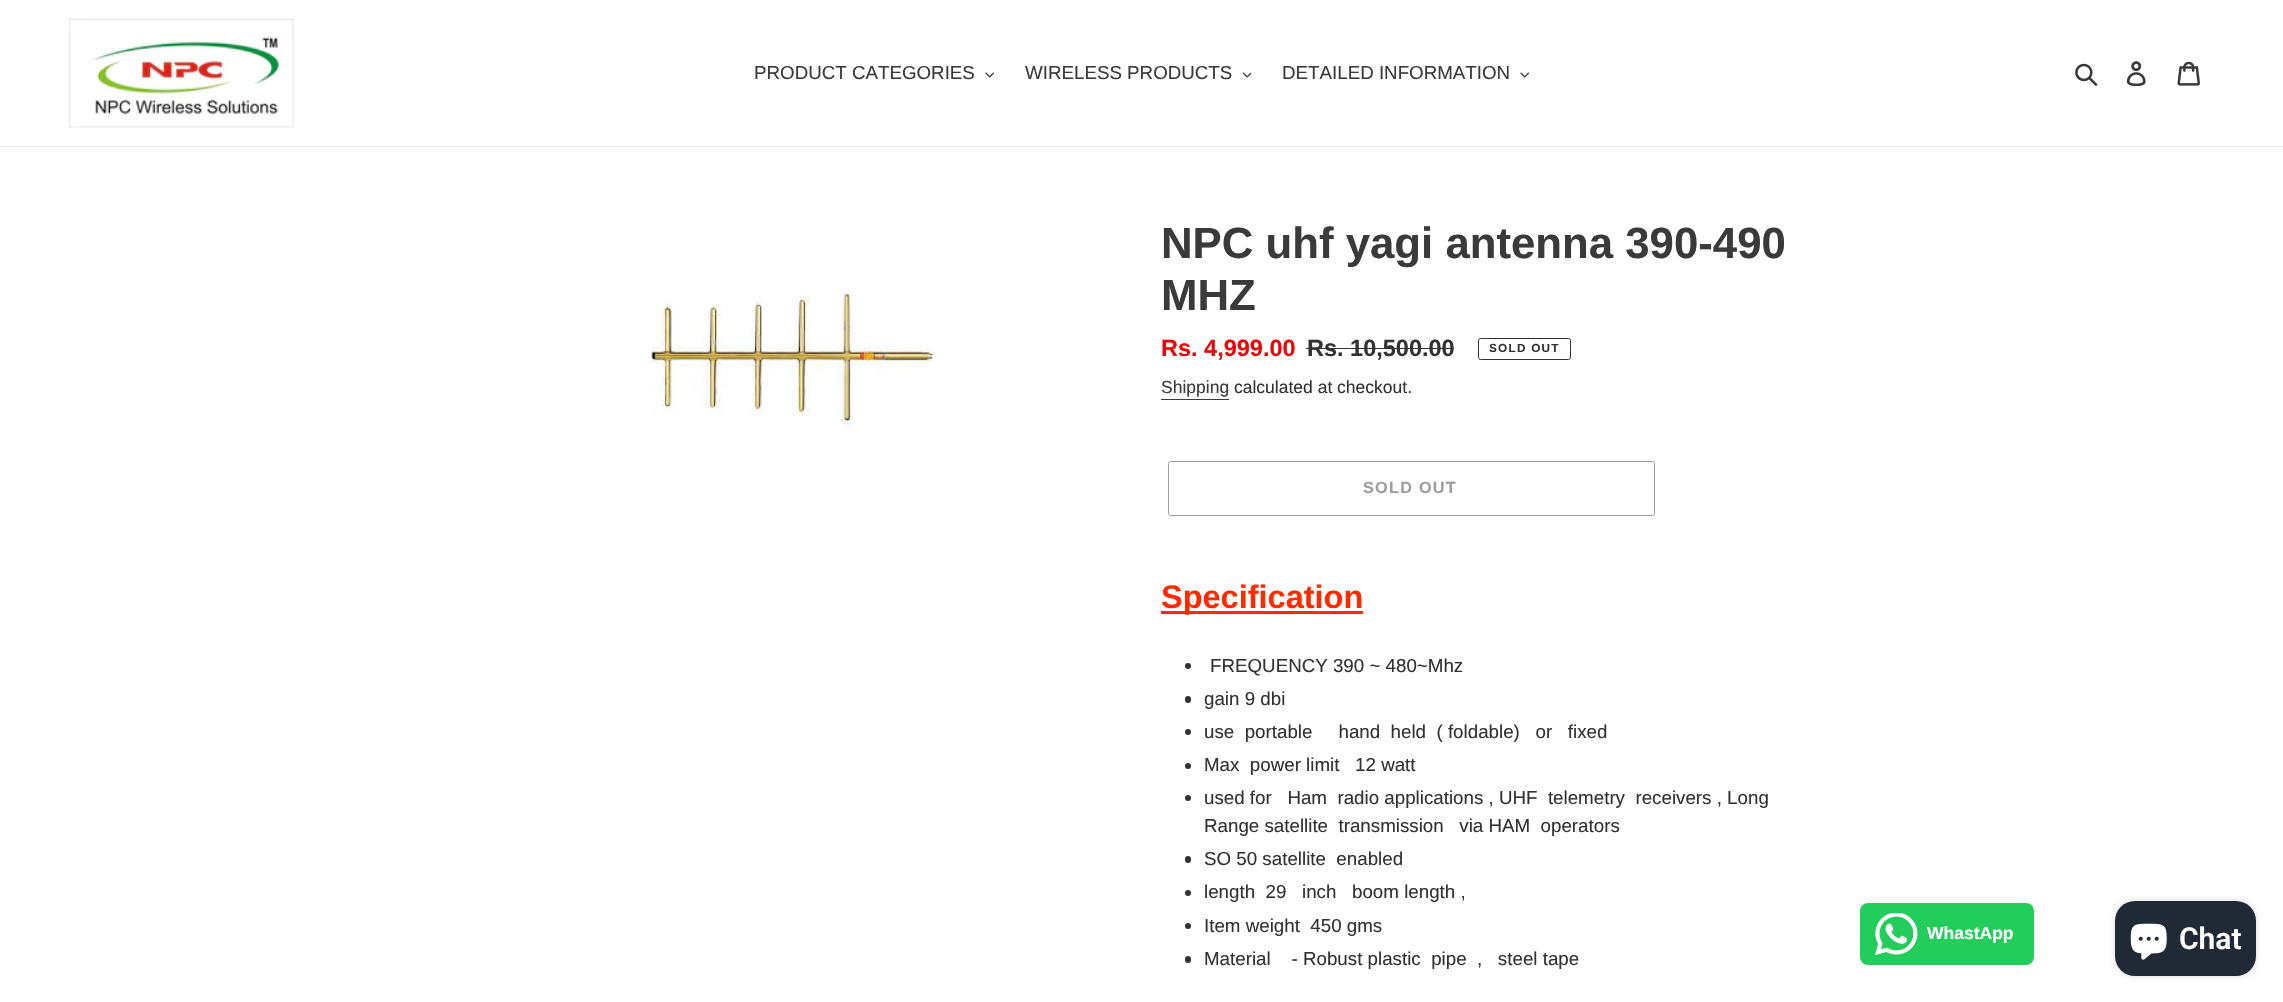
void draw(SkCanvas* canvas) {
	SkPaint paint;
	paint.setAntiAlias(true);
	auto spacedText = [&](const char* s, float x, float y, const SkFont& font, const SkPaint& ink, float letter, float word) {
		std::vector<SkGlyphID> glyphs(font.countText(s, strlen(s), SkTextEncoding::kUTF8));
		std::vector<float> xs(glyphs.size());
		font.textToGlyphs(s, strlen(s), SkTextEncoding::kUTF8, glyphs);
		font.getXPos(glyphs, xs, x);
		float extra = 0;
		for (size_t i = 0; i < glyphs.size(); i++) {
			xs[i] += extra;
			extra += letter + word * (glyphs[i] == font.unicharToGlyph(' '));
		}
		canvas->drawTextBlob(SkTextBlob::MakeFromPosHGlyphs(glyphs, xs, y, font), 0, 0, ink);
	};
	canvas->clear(0xffffffff);
	paint.setColor(0xffebebeb);
	canvas->drawRect(SkRect::MakeXYWH(0, 146, 2283, 1), paint);
	canvas->drawImageRect(SkImages::DeferredFromEncodedData(SkData::MakeFromFileName("img1.png")), SkRect::MakeXYWH(68, 18, 226, 110), SkSamplingOptions());
	SkFont f1(fontMgr->matchFamilyStyle("Liberation Sans", SkFontStyle::Normal()), 18.75);
	f1.setSubpixel(true);
	paint.setColor(0xff3a3a3a);
	canvas->drawString("PRODUCT CATEGORIES", 754, 79, f1, paint);
	canvas->drawImageRect(SkImages::DeferredFromEncodedData(SkData::MakeFromFileName("img2.png")), SkRect::MakeXYWH(985, 72, 9, 6), SkSamplingOptions());
	canvas->drawString("WIRELESS PRODUCTS", 1025, 79, f1, paint);
	canvas->drawImageRect(SkImages::DeferredFromEncodedData(SkData::MakeFromFileName("img3.png")), SkRect::MakeXYWH(1243, 72, 8, 6), SkSamplingOptions());
	canvas->drawString("DETAILED INFORMATION", 1282, 79, f1, paint);
	canvas->drawImageRect(SkImages::DeferredFromEncodedData(SkData::MakeFromFileName("img2.png")), SkRect::MakeXYWH(1520, 72, 9, 6), SkSamplingOptions());
	canvas->drawImageRect(SkImages::DeferredFromEncodedData(SkData::MakeFromFileName("img4.png")), SkRect::MakeXYWH(2075, 63, 23, 23), SkSamplingOptions());
	canvas->drawImageRect(SkImages::DeferredFromEncodedData(SkData::MakeFromFileName("img5.png")), SkRect::MakeXYWH(2126, 61, 20, 25), SkSamplingOptions());
	canvas->drawImageRect(SkImages::DeferredFromEncodedData(SkData::MakeFromFileName("img6.png")), SkRect::MakeXYWH(2177, 61, 23, 25), SkSamplingOptions());
	canvas->drawImageRect(SkImages::DeferredFromEncodedData(SkData::MakeFromFileName("img7.png")), SkRect::MakeXYWH(651, 287, 282, 140), SkSamplingOptions());
	SkFont f2(fontMgr->matchFamilyStyle("Liberation Sans", SkFontStyle::Bold()), 43.75);
	f2.setSubpixel(true);
	canvas->drawString("NPC uhf yagi antenna 390-490", 1161, 258, f2, paint);
	canvas->drawString("MHZ", 1161, 310, f2, paint);
	SkFont f3(fontMgr->matchFamilyStyle("Liberation Sans", SkFontStyle::Bold()), 23.5);
	f3.setSubpixel(true);
	paint.setColor(0xffea0606);
	canvas->drawString("Rs. 4,999.00", 1161, 356, f3, paint);
	paint.setColor(0xff333232);
	canvas->drawString("Rs. 10,500.00", 1307, 356, f3, paint);
	canvas->drawRect(SkRect::MakeXYWH(1306, 348, 148, 1), paint);
	paint.setStroke(true);
	paint.setStrokeWidth(1);
	canvas->drawRoundRect(SkRect::MakeXYWH(1478.5, 338.5, 92, 21), 2, 2, paint);
	SkFont f4(fontMgr->matchFamilyStyle("Liberation Sans", SkFontStyle::Bold()), 11.75);
	f4.setSubpixel(true);
	paint.setStroke(false);
	spacedText("SOLD OUT", 1489, 352, f4, paint, 1.25, 0);
	SkFont f5(fontMgr->matchFamilyStyle("Liberation Sans", SkFontStyle::Normal()), 17.5);
	f5.setSubpixel(true);
	paint.setColor(0xff3a3a3a);
	canvas->drawString("Shipping", 1161, 393, f5, paint);
	canvas->drawRect(SkRect::MakeXYWH(1161, 399, 68, 1), paint);
	paint.setColor(0xff333232);
	canvas->drawString("calculated at checkout.", 1234, 393, f5, paint);
	paint.setStroke(true);
	paint.setColor(0xff9d9d9d);
	canvas->drawRoundRect(SkRect::MakeXYWH(1168.5, 461.5, 486, 54), 2, 2, paint);
	SkFont f6(fontMgr->matchFamilyStyle("Liberation Sans", SkFontStyle::Bold()), 16.25);
	f6.setSubpixel(true);
	paint.setStroke(false);
	spacedText("SOLD OUT", 1363, 493, f6, paint, 1.25, 0);
	paint.setColor(0xffff2a00);
	canvas->drawRect(SkRect::MakeXYWH(1161, 611, 202, 3), paint);
	SkFont f7(fontMgr->matchFamilyStyle("Liberation Sans", SkFontStyle::Bold()), 32.5);
	f7.setSubpixel(true);
	canvas->drawString("Specification", 1161, 608, f7, paint);
	paint.setColor(0xff333232);
	canvas->drawCircle(1188, 666, 3, paint);
	canvas->drawString("FREQUENCY 390 ~ 480~Mhz", 1210, 672, f1, paint);
	canvas->drawRoundRect(SkRect::MakeXYWH(1185, 696, 6, 7), 3, 3, paint);
	canvas->drawString("gain 9 dbi", 1204, 705, f1, paint);
	canvas->drawCircle(1188, 732, 3, paint);
	canvas->drawString("use  portable     hand  held  ( foldable)   or   fixed", 1204, 738, f1, paint);
	canvas->drawCircle(1188, 766, 3, paint);
	canvas->drawString("Max  power limit   12 watt", 1204, 771, f1, paint);
	canvas->drawCircle(1188, 798, 3, paint);
	canvas->drawString("used for   Ham  radio applications , UHF  telemetry  receivers , Long", 1204, 804, f1, paint);
	canvas->drawString("Range satellite  transmission   via HAM  operators", 1204, 832, f1, paint);
	canvas->drawRoundRect(SkRect::MakeXYWH(1185, 856, 6, 7), 3, 3, paint);
	canvas->drawString("SO 50 satellite  enabled", 1204, 865, f1, paint);
	canvas->drawCircle(1188, 893, 3, paint);
	canvas->drawString("length  29   inch   boom length ,", 1204, 898, f1, paint);
	canvas->drawCircle(1188, 926, 3, paint);
	canvas->drawString("Item weight  450 gms", 1204, 932, f1, paint);
	canvas->drawRoundRect(SkRect::MakeXYWH(1185, 956, 6, 7), 3, 3, paint);
	canvas->drawString("Material    - Robust plastic  pipe  ,   steel tape", 1204, 965, f1, paint);
	paint.setColor(0xff22cd5b);
	canvas->drawRoundRect(SkRect::MakeXYWH(1860, 903, 174, 62), 8, 8, paint);
	canvas->drawImageRect(SkImages::DeferredFromEncodedData(SkData::MakeFromFileName("img8.png")), SkRect::MakeXYWH(1875, 913, 43, 42), SkSamplingOptions());
	SkFont f8(fontMgr->matchFamilyStyle("Liberation Sans", SkFontStyle::Bold()), 17.5);
	f8.setSubpixel(true);
	paint.setColor(0xffffffff);
	canvas->drawString("WhastApp", 1927, 939, f8, paint);
	paint.setColor(0x26000000);
	paint.setMaskFilter(SkMaskFilter::MakeBlur(kNormal_SkBlurStyle, 3));
	canvas->drawRoundRect(SkRect::MakeXYWH(2115, 901, 141, 75), 20, 20, paint);
	paint.setMaskFilter(nullptr);
	paint.setColor(0xff202936);
	canvas->drawRoundRect(SkRect::MakeXYWH(2115, 901, 141, 75), 20, 20, paint);
	canvas->drawImageRect(SkImages::DeferredFromEncodedData(SkData::MakeFromFileName("img9.png")), SkRect::MakeXYWH(2130, 923, 37, 37), SkSamplingOptions());
	SkFont f9(fontMgr->matchFamilyStyle("Roboto", SkFontStyle(600, SkFontStyle::kNormal_Width, SkFontStyle::kUpright_Slant)), 30);
	f9.setSubpixel(true);
	paint.setColor(0xffffffff);
	canvas->drawString("Chat", 2179, 949, f9, paint);
}
